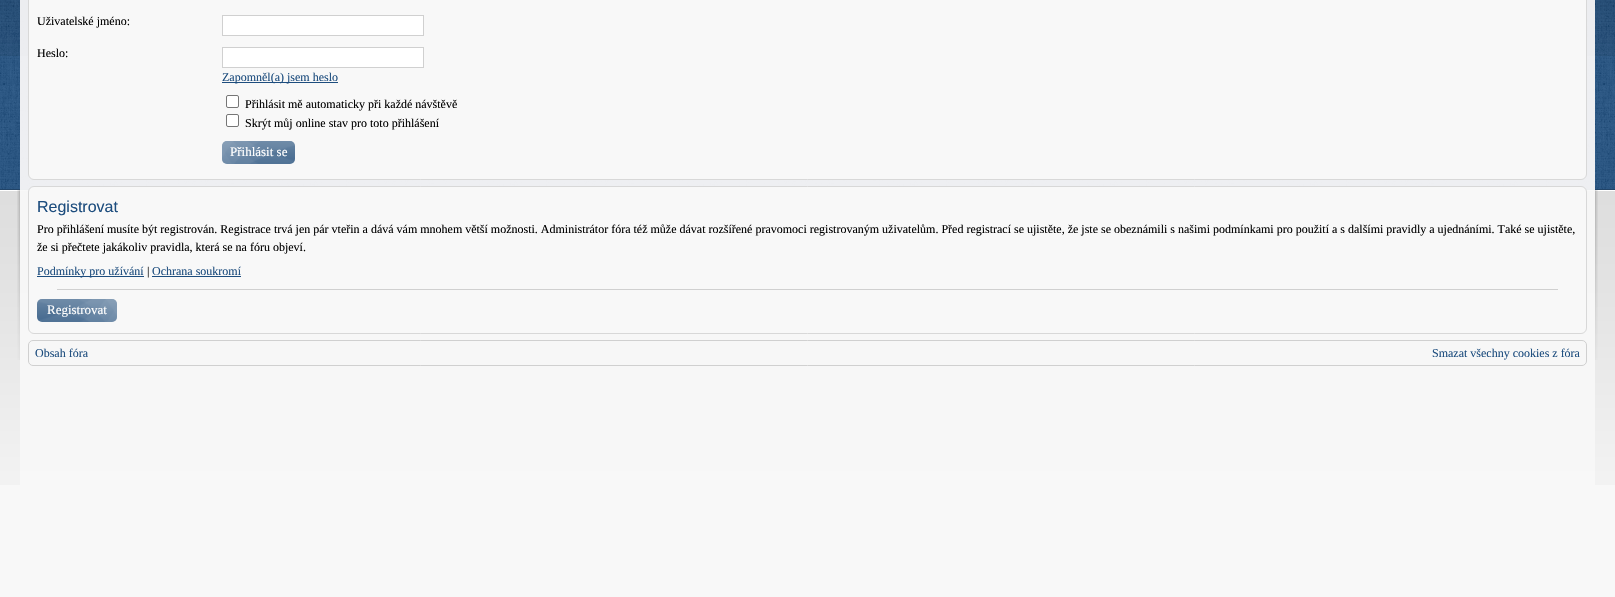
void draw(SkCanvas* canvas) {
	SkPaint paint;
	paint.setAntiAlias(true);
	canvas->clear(0xfff8f8f8);
	paint.setColor(0xff1d4d7e);
	canvas->drawRect(SkRect::MakeXYWH(0, 0, 1615, 189), paint);
	paint.setColor(0xffedeff2);
	canvas->drawRect(SkRect::MakeXYWH(20, 0, 1575, 189), paint);
	canvas->drawImageRect(SkImages::DeferredFromEncodedData(SkData::MakeFromFileName("img1.png")), SkRect::MakeXYWH(0, 0, 1615, 189), SkSamplingOptions());
	paint.setColor(0xff224467);
	canvas->drawRect(SkRect::MakeXYWH(0, 189, 1615, 1), paint);
	paint.setColor(0xffedeff1);
	canvas->drawRect(SkRect::MakeXYWH(20, 189, 1575, 1), paint);
	canvas->drawImageRect(SkImages::DeferredFromEncodedData(SkData::MakeFromFileName("img2.png")), SkRect::MakeXYWH(0, 0, 1615, 56), SkSamplingOptions());
	canvas->drawImageRect(SkImages::DeferredFromEncodedData(SkData::MakeFromFileName("img3.png")), SkRect::MakeXYWH(0, 0, 1615, 56), SkSamplingOptions());
	canvas->drawImageRect(SkImages::DeferredFromEncodedData(SkData::MakeFromFileName("img4.png")), SkRect::MakeXYWH(0, 191, 1615, 294), SkSamplingOptions());
	paint.setColor(0xffffffff);
	canvas->drawRect(SkRect::MakeXYWH(0, 190, 1615, 1), paint);
	paint.setColor(0xfff8f8f8);
	canvas->drawRect(SkRect::MakeXYWH(20, 190, 1575, 1), paint);
	canvas->drawImageRect(SkImages::DeferredFromEncodedData(SkData::MakeFromFileName("img5.png")), SkRect::MakeXYWH(17, 190, 3, 170), SkSamplingOptions());
	canvas->drawImageRect(SkImages::DeferredFromEncodedData(SkData::MakeFromFileName("img6.png")), SkRect::MakeXYWH(1595, 190, 3, 170), SkSamplingOptions());
	canvas->drawRoundRect(SkRect::MakeXYWH(28.5, -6.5, 1558, 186), 5.5, 5.5, paint);
	paint.setStroke(true);
	paint.setStrokeWidth(1);
	paint.setColor(0xffd8d8d8);
	canvas->drawRoundRect(SkRect::MakeXYWH(28.5, -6.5, 1558, 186), 5.5, 5.5, paint);
	SkFont f1(fontMgr->matchFamilyStyle("Liberation Serif", SkFontStyle::Normal()), 12);
	f1.setSubpixel(true);
	paint.setStroke(false);
	paint.setColor(0xff000000);
	canvas->drawString("Uživatelské jméno:", 37, 25, f1, paint);
	paint.setColor(0xffffffff);
	canvas->drawRect(SkRect::MakeXYWH(222.5, 15.5, 201, 20), paint);
	paint.setStroke(true);
	paint.setColor(0xffd0d0d0);
	canvas->drawRect(SkRect::MakeXYWH(222.5, 15.5, 201, 20), paint);
	paint.setStroke(false);
	paint.setColor(0xff000000);
	canvas->drawString("Heslo:", 37, 57, f1, paint);
	paint.setColor(0xffffffff);
	canvas->drawRect(SkRect::MakeXYWH(222.5, 47.5, 201, 20), paint);
	paint.setStroke(true);
	paint.setColor(0xffd0d0d0);
	canvas->drawRect(SkRect::MakeXYWH(222.5, 47.5, 201, 20), paint);
	paint.setStroke(false);
	paint.setColor(0xff1d4d7e);
	canvas->drawRect(SkRect::MakeXYWH(222, 82, 116, 1), paint);
	canvas->drawString("Zapomněl(a) jsem heslo", 222, 81, f1, paint);
	paint.setColor(0xffffffff);
	canvas->drawRoundRect(SkRect::MakeXYWH(226.5, 95.5, 12, 12), 1.5, 1.5, paint);
	paint.setStroke(true);
	paint.setColor(0xff767676);
	canvas->drawRoundRect(SkRect::MakeXYWH(226.5, 95.5, 12, 12), 1.5, 1.5, paint);
	paint.setStroke(false);
	paint.setColor(0xff000000);
	canvas->drawString("Přihlásit mě automaticky při každé návštěvě", 245, 108, f1, paint);
	paint.setColor(0xffffffff);
	canvas->drawRoundRect(SkRect::MakeXYWH(226.5, 114.5, 12, 12), 1.5, 1.5, paint);
	paint.setStroke(true);
	paint.setColor(0xff767676);
	canvas->drawRoundRect(SkRect::MakeXYWH(226.5, 114.5, 12, 12), 1.5, 1.5, paint);
	paint.setStroke(false);
	paint.setColor(0xff000000);
	canvas->drawString("Skrýt můj online stav pro toto přihlášení", 245, 127, f1, paint);
	paint.setColor(0xff43688e);
	canvas->drawRoundRect(SkRect::MakeXYWH(222, 141, 73, 23), 5, 5, paint);
	canvas->drawImageRect(SkImages::DeferredFromEncodedData(SkData::MakeFromFileName("img7.png")), SkRect::MakeXYWH(222, 141, 73, 23), SkSamplingOptions());
	SkFont f2(fontMgr->matchFamilyStyle("Liberation Serif", SkFontStyle::Normal()), 13);
	f2.setSubpixel(true);
	paint.setColor(0xffffffff);
	canvas->drawString("Přihlásit se", 230, 156, f2, paint);
	paint.setColor(0xfff8f8f8);
	canvas->drawRoundRect(SkRect::MakeXYWH(28.5, 186.5, 1558, 147), 5.5, 5.5, paint);
	paint.setStroke(true);
	paint.setColor(0xffd8d8d8);
	canvas->drawRoundRect(SkRect::MakeXYWH(28.5, 186.5, 1558, 147), 5.5, 5.5, paint);
	SkFont f3(fontMgr->matchFamilyStyle("Liberation Sans", SkFontStyle::Normal()), 16);
	f3.setSubpixel(true);
	paint.setStroke(false);
	paint.setColor(0xff1d4d7e);
	canvas->drawString("Registrovat", 37, 212, f3, paint);
	paint.setColor(0xff000000);
	canvas->drawString("Pro přihlášení musíte být registrován. Registrace trvá jen pár vteřin a dává vám mnohem větší možnosti. Administrátor fóra též může dávat rozšířené pravomoci registrovaným uživatelům. Před registrací se ujistěte, že jste se obeznámili s našimi podmínkami pro použití a s dalšími pravidly a ujednáními. Také se ujistěte,", 37, 233, f1, paint);
	canvas->drawString("že si přečtete jakákoliv pravidla, která se na fóru objeví.", 37, 251, f1, paint);
	paint.setColor(0xff1d4d7e);
	canvas->drawRect(SkRect::MakeXYWH(37, 276, 107, 1), paint);
	canvas->drawString("Podmínky pro užívání", 37, 275, f1, paint);
	paint.setColor(0xff000000);
	canvas->drawString("|", 147, 275, f1, paint);
	paint.setColor(0xff1d4d7e);
	canvas->drawString("Ochrana soukromí", 152, 275, f1, paint);
	canvas->drawRect(SkRect::MakeXYWH(152, 276, 89, 1), paint);
	paint.setColor(0xffd0d0d0);
	canvas->drawRect(SkRect::MakeXYWH(57, 289, 1501, 1), paint);
	paint.setColor(0xff43688e);
	canvas->drawRoundRect(SkRect::MakeXYWH(37, 299, 80, 23), 5, 5, paint);
	canvas->drawImageRect(SkImages::DeferredFromEncodedData(SkData::MakeFromFileName("img8.png")), SkRect::MakeXYWH(37, 299, 80, 23), SkSamplingOptions());
	paint.setColor(0xffffffff);
	canvas->drawString("Registrovat", 47, 314, f2, paint);
	paint.setStroke(true);
	paint.setColor(0xffd0d0d0);
	canvas->drawRoundRect(SkRect::MakeXYWH(28.5, 340.5, 1558, 25), 4.5, 4.5, paint);
	paint.setStroke(false);
	paint.setColor(0xff1d4d7e);
	canvas->drawString("Obsah fóra", 35, 357, f1, paint);
	canvas->drawString("Smazat všechny cookies z fóra", 1432, 357, f1, paint);
}
